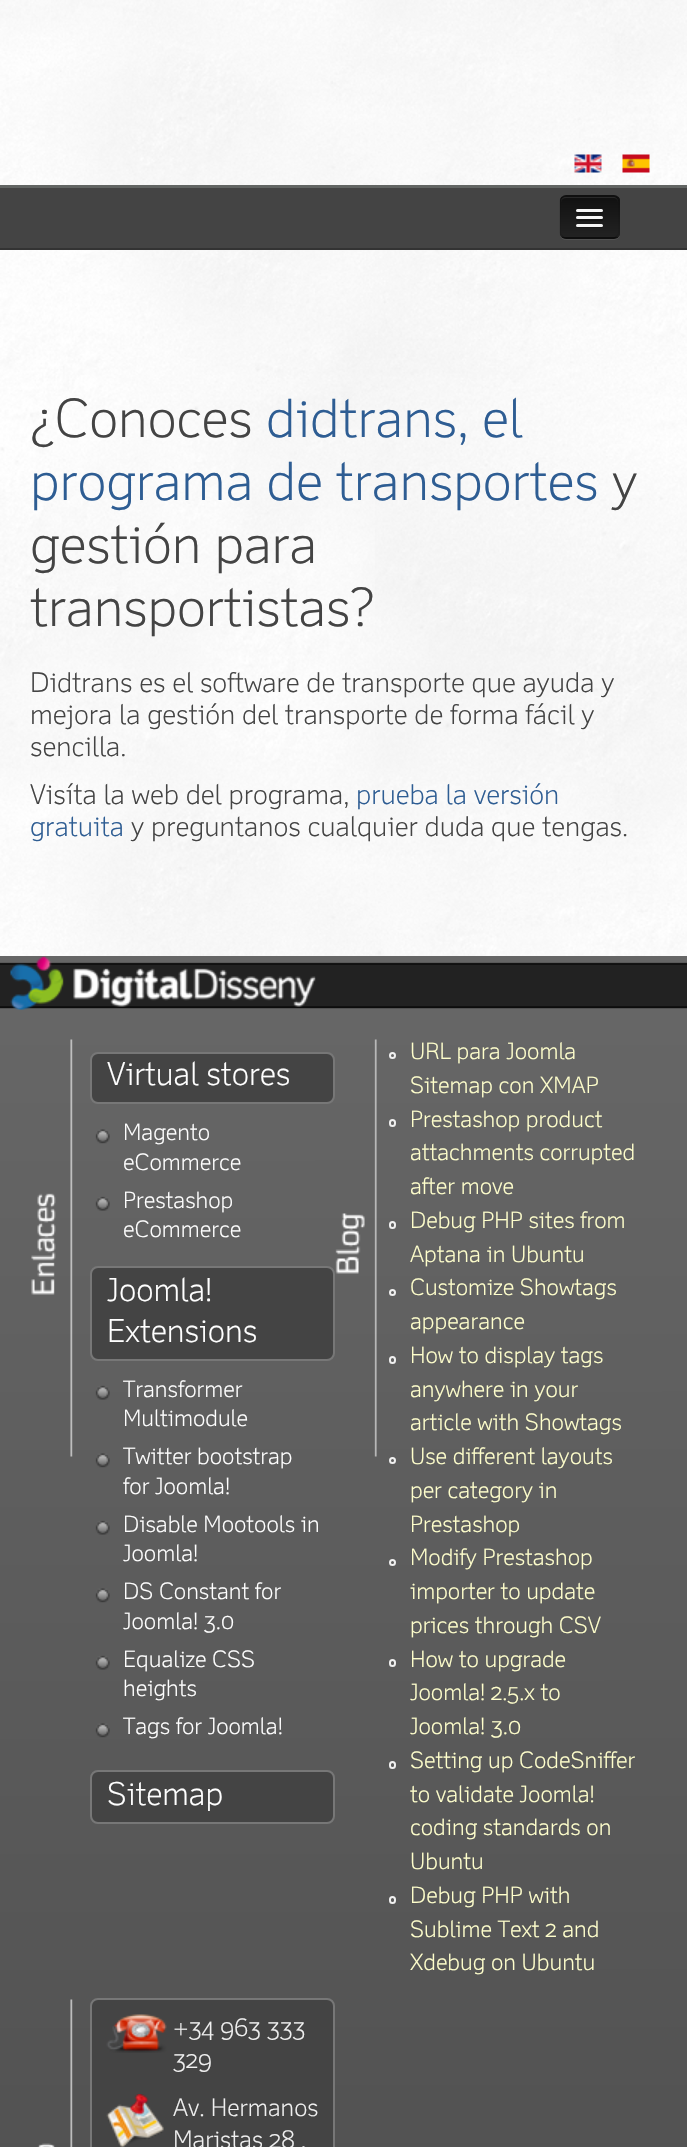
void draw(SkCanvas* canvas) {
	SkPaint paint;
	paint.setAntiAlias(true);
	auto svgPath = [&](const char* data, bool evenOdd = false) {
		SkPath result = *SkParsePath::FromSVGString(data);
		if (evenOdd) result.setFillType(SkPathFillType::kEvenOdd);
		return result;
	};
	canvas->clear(0xffffffff);
	canvas->drawImageRect(SkImages::DeferredFromEncodedData(SkData::MakeFromFileName("img1.png")), SkRect::MakeXYWH(0, 0, 687, 956), SkSamplingOptions());
	canvas->drawImageRect(SkImages::DeferredFromEncodedData(SkData::MakeFromFileName("img2.png")), SkRect::MakeXYWH(574, 154, 28, 19), SkSamplingOptions());
	canvas->drawImageRect(SkImages::DeferredFromEncodedData(SkData::MakeFromFileName("img3.png")), SkRect::MakeXYWH(622, 154, 28, 19), SkSamplingOptions());
	paint.setColor(0xff444444);
	canvas->drawRect(SkRect::MakeXYWH(0, 188, 687, 60), paint);
	paint.setColor(0xff626563);
	canvas->drawRect(SkRect::MakeXYWH(0, 185, 687, 3), paint);
	paint.setColor(0xff333333);
	canvas->drawRect(SkRect::MakeXYWH(0, 248, 687, 2), paint);
	paint.setColor(0xff525252);
	canvas->drawPath(svgPath("M560 235C561 238 563 240 566 240H614C617 240 620 237 620 234V203L619 201L620 227C620 239 617 238 606 238H574C569 238 562 240 560 235Z"), paint);
	paint.setColor(0xff111111);
	canvas->drawRoundRect(SkRect::MakeXYWH(560, 195, 60, 44), 6, 6, paint);
	canvas->save();
	canvas->clipPath(svgPath("M566 195H614C617.5 195 620 197.5 620 201V233C620 236.5 617.5 239 614 239H566C562.5 239 560 236.5 560 233V201C560 197.5 562.5 195 566 195Z"), true);
	{
		const SkColor colors[] = {0xff111111, 0xff222222};
		const float stops[] = {0, 1};
		const SkPoint ends[] = {{590, 197}, {590, 237}};
		paint.setShader(SkGradientShader::MakeLinear(ends, colors, stops, 2, SkTileMode::kClamp));
		paint.setAlpha(255);
	}
	canvas->drawRect(SkRect::MakeXYWH(560, 197, 60, 40), paint);
	canvas->restore();
	paint.setShader(nullptr);
	paint.setColor(0xff292929);
	canvas->drawPath(svgPath("M566 198H614C616 198 618 200 618 202C618 199 616 197 613 197H566C563 197 561 199 561 202C561 200 563 198 566 198Z"), paint);
	paint.setStroke(true);
	paint.setStrokeWidth(1.5);
	paint.setColor(0x40000000);
	canvas->drawPath(svgPath("M617 236C616 237 615 238 613.5 238H565.5C564 238 563 237 562 236"), paint);
	paint.setColor(0x1a000000);
	canvas->drawPath(svgPath("M562 236C561 235 560 234 560 232.5V201C560 199.5 561 198.5 562 197.5C563 196.5 564 196 565.5 196H613.5C615 196 616 196.5 617 197.5C618 198.5 619 199.5 619 201V232.5C619 234 618 235 617 236"), paint);
	paint.setStroke(false);
	paint.setColor(0xff121212);
	canvas->drawPath(svgPath("M576 211C574.5 214 581.5 213 581.5 213H597.5C597.5 213 604.5 214 603 211C602.5 211 602 211.5 601.5 211.5H577.5C577 211.5 576.5 211 576 211Z"), paint);
	paint.setColor(0xfff5f5f5);
	canvas->drawRoundRect(SkRect::MakeXYWH(576, 209, 27, 3), 1.5, 1.5, paint);
	paint.setColor(0xff141414);
	canvas->drawPath(svgPath("M576.5 218.5L576 220C576.5 222 581 221 581.5 221H597.5C598 221 602.5 222 603 220L602.5 218.5L601.5 219H577.5Z"), paint);
	paint.setColor(0xfff5f5f5);
	canvas->drawRoundRect(SkRect::MakeXYWH(576, 216, 27, 3), 1.5, 1.5, paint);
	paint.setColor(0xff171717);
	canvas->drawPath(svgPath("M576 226C574.5 229 581.5 228 581.5 228H597.5C597.5 228 604.5 229 603 226C602.5 226 602 226.5 601.5 226.5H577.5C577 226.5 576.5 226 576 226Z"), paint);
	paint.setColor(0xfff5f5f5);
	canvas->drawRoundRect(SkRect::MakeXYWH(576, 224, 27, 3), 1.5, 1.5, paint);
	SkFont f1(fontMgr->matchFamilyStyle("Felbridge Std", SkFontStyle(300, SkFontStyle::kNormal_Width, SkFontStyle::kUpright_Slant)), 52.5);
	f1.setSubpixel(true);
	paint.setColor(0xff444444);
	canvas->drawString("¿Conoces", 30, 437, f1, paint);
	paint.setColor(0xff2e5d93);
	canvas->drawString("didtrans, el", 266, 437, f1, paint);
	canvas->drawString("programa de transportes", 30, 500, f1, paint);
	paint.setColor(0xff444444);
	canvas->drawString("y", 612, 500, f1, paint);
	canvas->drawString("gestión para", 30, 563, f1, paint);
	canvas->drawString("transportistas?", 30, 626, f1, paint);
	SkFont f2(fontMgr->matchFamilyStyle("Felbridge Std", SkFontStyle(300, SkFontStyle::kNormal_Width, SkFontStyle::kUpright_Slant)), 27);
	f2.setSubpixel(true);
	canvas->drawString("Didtrans es el software de transporte que ayuda y", 30, 692, f2, paint);
	canvas->drawString("mejora la gestión del transporte de forma fácil y", 30, 724, f2, paint);
	canvas->drawString("sencilla.", 30, 756, f2, paint);
	canvas->drawString("Visíta la web del programa,", 30, 804, f2, paint);
	paint.setColor(0xff2e5d93);
	canvas->drawString("prueba la versión", 356, 804, f2, paint);
	canvas->drawString("gratuita", 30, 836, f2, paint);
	paint.setColor(0xff444444);
	canvas->drawString("y preguntanos cualquier duda que tengas.", 131, 836, f2, paint);
	paint.setColor(0xff666666);
	canvas->drawRect(SkRect::MakeXYWH(0, 956, 687, 60), paint);
	canvas->drawImageRect(SkImages::DeferredFromEncodedData(SkData::MakeFromFileName("img4.png")), SkRect::MakeXYWH(0, 962, 687, 47), SkSamplingOptions());
	canvas->drawImageRect(SkImages::DeferredFromEncodedData(SkData::MakeFromFileName("img5.png")), SkRect::MakeXYWH(10, 956, 306, 54), SkSamplingOptions());
	{
		const SkColor colors[] = {0xff666666, 0xff444444};
		const float stops[] = {0, 1};
		const SkPoint ends[] = {{343, 1016}, {344, 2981}};
		paint.setShader(SkGradientShader::MakeLinear(ends, colors, stops, 2, SkTileMode::kClamp));
		paint.setAlpha(255);
	}
	canvas->drawRect(SkRect::MakeXYWH(0, 1016, 687, 1131), paint);
	canvas->drawImageRect(SkImages::DeferredFromEncodedData(SkData::MakeFromFileName("img6.png")), SkRect::MakeXYWH(31, 1039, 42, 418), SkSamplingOptions());
	paint.setShader(nullptr);
	paint.setColor(0xff444444);
	canvas->drawRoundRect(SkRect::MakeXYWH(91, 1053, 243, 50), 7, 7, paint);
	paint.setStroke(true);
	paint.setStrokeWidth(2);
	paint.setColor(0xff777777);
	canvas->drawRoundRect(SkRect::MakeXYWH(91, 1053, 243, 50), 7, 7, paint);
	SkFont f3(fontMgr->matchFamilyStyle("Felbridge Std", SkFontStyle(300, SkFontStyle::kNormal_Width, SkFontStyle::kUpright_Slant)), 31.5);
	f3.setSubpixel(true);
	paint.setStroke(false);
	paint.setColor(0xffffffff);
	canvas->drawString("Virtual stores", 107, 1085, f3, paint);
	canvas->drawImageRect(SkImages::DeferredFromEncodedData(SkData::MakeFromFileName("img7.png")), SkRect::MakeXYWH(95, 1129, 15, 15), SkSamplingOptions());
	SkFont f4(fontMgr->matchFamilyStyle("Felbridge Std", SkFontStyle(300, SkFontStyle::kNormal_Width, SkFontStyle::kUpright_Slant)), 22.5);
	f4.setSubpixel(true);
	canvas->drawString("Magento", 123, 1140, f4, paint);
	canvas->drawString("eCommerce", 123, 1170, f4, paint);
	canvas->drawImageRect(SkImages::DeferredFromEncodedData(SkData::MakeFromFileName("img8.png")), SkRect::MakeXYWH(95, 1196, 15, 15), SkSamplingOptions());
	canvas->drawString("Prestashop", 123, 1208, f4, paint);
	canvas->drawString("eCommerce", 123, 1237, f4, paint);
	paint.setColor(0xff444444);
	canvas->drawRoundRect(SkRect::MakeXYWH(91, 1267, 243, 93), 7, 7, paint);
	paint.setStroke(true);
	paint.setColor(0xff777777);
	canvas->drawRoundRect(SkRect::MakeXYWH(91, 1267, 243, 93), 7, 7, paint);
	paint.setStroke(false);
	paint.setColor(0xffffffff);
	canvas->drawString("Joomla!", 107, 1301, f3, paint);
	canvas->drawString("Extensions", 107, 1342, f3, paint);
	canvas->drawImageRect(SkImages::DeferredFromEncodedData(SkData::MakeFromFileName("img9.png")), SkRect::MakeXYWH(95, 1385, 15, 15), SkSamplingOptions());
	canvas->drawString("Transformer", 123, 1397, f4, paint);
	canvas->drawString("Multimodule", 123, 1426, f4, paint);
	canvas->drawImageRect(SkImages::DeferredFromEncodedData(SkData::MakeFromFileName("img10.png")), SkRect::MakeXYWH(95, 1453, 15, 15), SkSamplingOptions());
	canvas->drawString("Twitter bootstrap", 123, 1464, f4, paint);
	canvas->drawString("for Joomla!", 123, 1494, f4, paint);
	canvas->drawImageRect(SkImages::DeferredFromEncodedData(SkData::MakeFromFileName("img11.png")), SkRect::MakeXYWH(95, 1520, 15, 15), SkSamplingOptions());
	canvas->drawString("Disable Mootools in", 123, 1532, f4, paint);
	canvas->drawString("Joomla!", 123, 1561, f4, paint);
	canvas->drawImageRect(SkImages::DeferredFromEncodedData(SkData::MakeFromFileName("img12.png")), SkRect::MakeXYWH(95, 1588, 15, 15), SkSamplingOptions());
	canvas->drawString("DS Constant for", 123, 1599, f4, paint);
	canvas->drawString("Joomla! 3.0", 123, 1629, f4, paint);
	canvas->drawImageRect(SkImages::DeferredFromEncodedData(SkData::MakeFromFileName("img13.png")), SkRect::MakeXYWH(95, 1655, 15, 15), SkSamplingOptions());
	canvas->drawString("Equalize CSS", 123, 1667, f4, paint);
	canvas->drawString("heights", 123, 1696, f4, paint);
	canvas->drawImageRect(SkImages::DeferredFromEncodedData(SkData::MakeFromFileName("img14.png")), SkRect::MakeXYWH(95, 1723, 15, 15), SkSamplingOptions());
	canvas->drawString("Tags for Joomla!", 123, 1734, f4, paint);
	paint.setColor(0xff444444);
	canvas->drawRoundRect(SkRect::MakeXYWH(91, 1771, 243, 52), 7, 7, paint);
	paint.setStroke(true);
	paint.setColor(0xff777777);
	canvas->drawRoundRect(SkRect::MakeXYWH(91, 1771, 243, 52), 7, 7, paint);
	paint.setStroke(false);
	paint.setColor(0xffffffff);
	canvas->drawString("Sitemap", 107, 1805, f3, paint);
	canvas->drawImageRect(SkImages::DeferredFromEncodedData(SkData::MakeFromFileName("img15.png")), SkRect::MakeXYWH(335, 1039, 42, 418), SkSamplingOptions());
	paint.setStroke(true);
	paint.setColor(0xfff0f0f0);
	canvas->drawCircle(392.5, 1055.5, 2.5, paint);
	paint.setStroke(false);
	paint.setColor(0xffffffcc);
	canvas->drawString("URL para Joomla", 410, 1059, f4, paint);
	canvas->drawString("Sitemap con XMAP", 410, 1093, f4, paint);
	paint.setStroke(true);
	paint.setColor(0xfff0f0f0);
	canvas->drawRoundRect(SkRect::MakeXYWH(390, 1120, 5, 6), 2.5, 2.5, paint);
	paint.setStroke(false);
	paint.setColor(0xffffffcc);
	canvas->drawString("Prestashop product", 410, 1127, f4, paint);
	canvas->drawString("attachments corrupted", 410, 1160, f4, paint);
	canvas->drawString("after move", 410, 1194, f4, paint);
	paint.setStroke(true);
	paint.setColor(0xfff0f0f0);
	canvas->drawRoundRect(SkRect::MakeXYWH(390, 1222, 5, 6), 2.5, 2.5, paint);
	paint.setStroke(false);
	paint.setColor(0xffffffcc);
	canvas->drawString("Debug PHP sites from", 410, 1228, f4, paint);
	canvas->drawString("Aptana in Ubuntu", 410, 1262, f4, paint);
	paint.setStroke(true);
	paint.setColor(0xfff0f0f0);
	canvas->drawCircle(392.5, 1292.5, 2.5, paint);
	paint.setStroke(false);
	paint.setColor(0xffffffcc);
	canvas->drawString("Customize Showtags", 410, 1295, f4, paint);
	canvas->drawString("appearance", 410, 1329, f4, paint);
	paint.setStroke(true);
	paint.setColor(0xfff0f0f0);
	canvas->drawRoundRect(SkRect::MakeXYWH(390, 1357, 5, 6), 2.5, 2.5, paint);
	paint.setStroke(false);
	paint.setColor(0xffffffcc);
	canvas->drawString("How to display tags", 410, 1363, f4, paint);
	canvas->drawString("anywhere in your", 410, 1397, f4, paint);
	canvas->drawString("article with Showtags", 410, 1430, f4, paint);
	paint.setStroke(true);
	paint.setColor(0xfff0f0f0);
	canvas->drawCircle(392.5, 1460.5, 2.5, paint);
	paint.setStroke(false);
	paint.setColor(0xffffffcc);
	canvas->drawString("Use different layouts", 410, 1464, f4, paint);
	canvas->drawString("per category in", 410, 1498, f4, paint);
	canvas->drawString("Prestashop", 410, 1532, f4, paint);
	paint.setStroke(true);
	paint.setColor(0xfff0f0f0);
	canvas->drawCircle(392.5, 1562.5, 2.5, paint);
	paint.setStroke(false);
	paint.setColor(0xffffffcc);
	canvas->drawString("Modify Prestashop", 410, 1565, f4, paint);
	canvas->drawString("importer to update", 410, 1599, f4, paint);
	canvas->drawString("prices through CSV", 410, 1633, f4, paint);
	paint.setStroke(true);
	paint.setColor(0xfff0f0f0);
	canvas->drawRoundRect(SkRect::MakeXYWH(390, 1660, 5, 6), 2.5, 2.5, paint);
	paint.setStroke(false);
	paint.setColor(0xffffffcc);
	canvas->drawString("How to upgrade", 410, 1667, f4, paint);
	canvas->drawString("Joomla! 2.5.x to", 410, 1700, f4, paint);
	canvas->drawString("Joomla! 3.0", 410, 1734, f4, paint);
	paint.setStroke(true);
	paint.setColor(0xfff0f0f0);
	canvas->drawRoundRect(SkRect::MakeXYWH(390, 1762, 5, 6), 2.5, 2.5, paint);
	paint.setStroke(false);
	paint.setColor(0xffffffcc);
	canvas->drawString("Setting up CodeSniffer", 410, 1768, f4, paint);
	canvas->drawString("to validate Joomla!", 410, 1802, f4, paint);
	canvas->drawString("coding standards on", 410, 1835, f4, paint);
	canvas->drawString("Ubuntu", 410, 1869, f4, paint);
	paint.setStroke(true);
	paint.setColor(0xfff0f0f0);
	canvas->drawRoundRect(SkRect::MakeXYWH(390, 1897, 5, 6), 2.5, 2.5, paint);
	paint.setStroke(false);
	paint.setColor(0xffffffcc);
	canvas->drawString("Debug PHP with", 410, 1903, f4, paint);
	canvas->drawString("Sublime Text 2 and", 410, 1937, f4, paint);
	canvas->drawString("Xdebug on Ubuntu", 410, 1970, f4, paint);
	canvas->drawImageRect(SkImages::DeferredFromEncodedData(SkData::MakeFromFileName("img16.png")), SkRect::MakeXYWH(37, 1999, 36, 148), SkSamplingOptions());
	paint.setColor(0xff444444);
	canvas->drawRoundRect(SkRect::MakeXYWH(91, 1999, 243, 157), 7, 7, paint);
	paint.setStroke(true);
	paint.setColor(0xff777777);
	canvas->drawRoundRect(SkRect::MakeXYWH(91, 1999, 243, 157), 7, 7, paint);
	canvas->drawImageRect(SkImages::DeferredFromEncodedData(SkData::MakeFromFileName("img17.png")), SkRect::MakeXYWH(106, 2014, 61, 39), SkSamplingOptions());
	SkFont f5(fontMgr->matchFamilyStyle("Felbridge Std", SkFontStyle(300, SkFontStyle::kNormal_Width, SkFontStyle::kUpright_Slant)), 24);
	f5.setSubpixel(true);
	paint.setStroke(false);
	paint.setColor(0xfff0f0f0);
	canvas->drawString("+34 963 333", 173, 2036, f5, paint);
	canvas->drawString("329", 173, 2068, f5, paint);
	canvas->drawImageRect(SkImages::DeferredFromEncodedData(SkData::MakeFromFileName("img18.png")), SkRect::MakeXYWH(106, 2094, 58, 53), SkSamplingOptions());
	canvas->drawString("Av. Hermanos", 173, 2116, f5, paint);
	canvas->drawString("Maristas 28 ,", 173, 2148, f5, paint);
}
